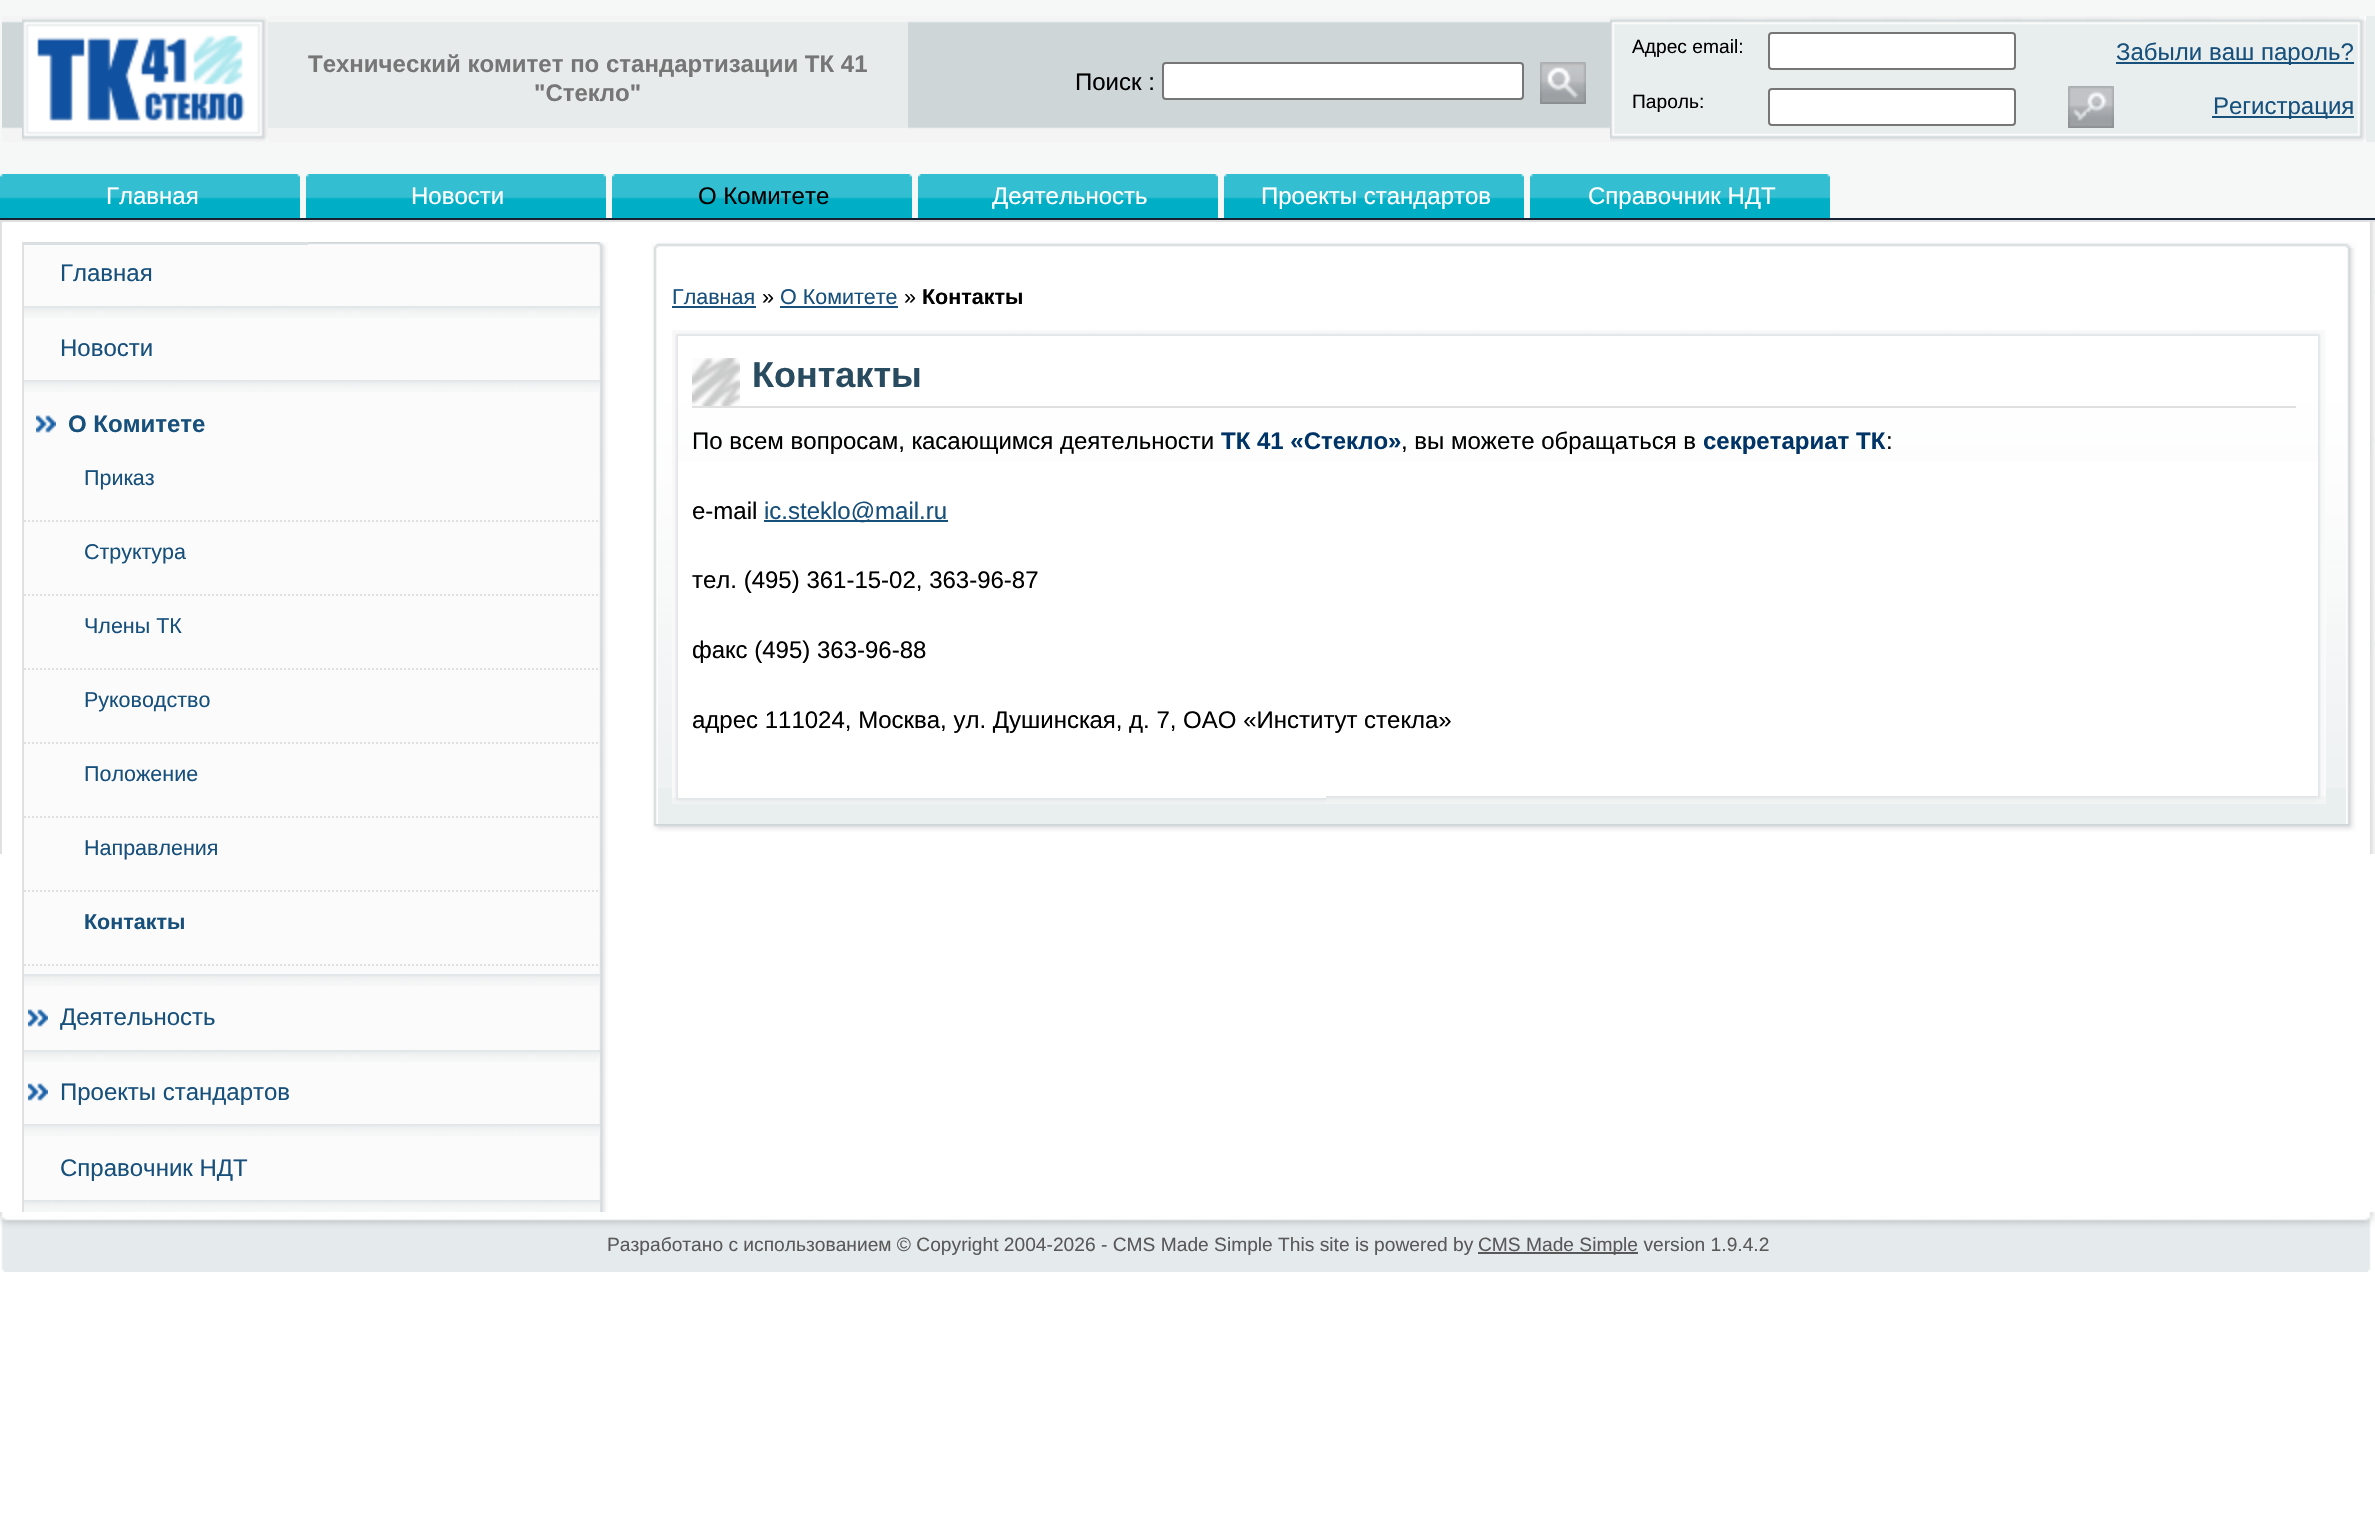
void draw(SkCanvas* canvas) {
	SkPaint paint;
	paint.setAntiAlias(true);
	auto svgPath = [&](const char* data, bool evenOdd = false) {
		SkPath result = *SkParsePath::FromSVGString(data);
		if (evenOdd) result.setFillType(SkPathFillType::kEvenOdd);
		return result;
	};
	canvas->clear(0xffffffff);
	paint.setColor(0xfff6f8f8);
	canvas->drawRect(SkRect::MakeXYWH(0, 0, 2375, 218), paint);
	paint.setColor(0xfff4f4f4);
	canvas->drawRect(SkRect::MakeXYWH(2, 16, 20, 126), paint);
	canvas->drawImageRect(SkImages::DeferredFromEncodedData(SkData::MakeFromFileName("img1.png")), SkRect::MakeXYWH(2, 21, 20, 108), SkSamplingOptions());
	canvas->drawImageRect(SkImages::DeferredFromEncodedData(SkData::MakeFromFileName("img2.png")), SkRect::MakeXYWH(22, 16, 246, 126), SkSamplingOptions());
	canvas->drawRect(SkRect::MakeXYWH(268, 16, 1342, 126), paint);
	paint.setColor(0xffe7ebec);
	canvas->drawRect(SkRect::MakeXYWH(268, 22, 640, 106), paint);
	SkFont f1(fontMgr->matchFamilyStyle("Liberation Sans", SkFontStyle::Bold()), 24);
	f1.setSubpixel(true);
	paint.setColor(0xff767676);
	canvas->drawString("Технический комитет по стандартизации ТК 41", 308, 72, f1, paint);
	canvas->drawString("\"Стекло\"", 534, 101, f1, paint);
	canvas->drawImageRect(SkImages::DeferredFromEncodedData(SkData::MakeFromFileName("img3.png")), SkRect::MakeXYWH(908, 21, 702, 108), SkSamplingOptions());
	SkFont f2(fontMgr->matchFamilyStyle("Liberation Sans", SkFontStyle::Normal()), 24);
	f2.setSubpixel(true);
	paint.setColor(0xff000000);
	canvas->drawString("Поиск :", 1075, 90, f2, paint);
	paint.setColor(0xffffffff);
	canvas->drawRoundRect(SkRect::MakeXYWH(1163, 63, 360, 36), 3, 3, paint);
	paint.setStroke(true);
	paint.setStrokeWidth(2);
	paint.setColor(0xff767676);
	canvas->drawRoundRect(SkRect::MakeXYWH(1163, 63, 360, 36), 3, 3, paint);
	canvas->drawImageRect(SkImages::DeferredFromEncodedData(SkData::MakeFromFileName("img4.png")), SkRect::MakeXYWH(1540, 62, 46, 42), SkSamplingOptions());
	paint.setStroke(false);
	paint.setColor(0xffe8eeee);
	canvas->drawRect(SkRect::MakeXYWH(2366, 16, 9, 126), paint);
	canvas->drawImageRect(SkImages::DeferredFromEncodedData(SkData::MakeFromFileName("img5.png")), SkRect::MakeXYWH(1610, 16, 756, 126), SkSamplingOptions());
	SkFont f3(fontMgr->matchFamilyStyle("Liberation Sans", SkFontStyle::Normal()), 19.2);
	f3.setSubpixel(true);
	paint.setColor(0xff000000);
	canvas->drawString("Адрес email:", 1632, 53, f3, paint);
	paint.setColor(0xffffffff);
	canvas->drawRoundRect(SkRect::MakeXYWH(1769, 33, 246, 36), 3, 3, paint);
	paint.setStroke(true);
	paint.setColor(0xff767676);
	canvas->drawRoundRect(SkRect::MakeXYWH(1769, 33, 246, 36), 3, 3, paint);
	paint.setStroke(false);
	paint.setColor(0xff18507c);
	canvas->drawRect(SkRect::MakeXYWH(2116, 62, 238, 2), paint);
	canvas->drawString("Забыли ваш пароль?", 2116, 60, f2, paint);
	paint.setColor(0xff000000);
	canvas->drawString("Пароль:", 1632, 108, f3, paint);
	paint.setColor(0xffffffff);
	canvas->drawRoundRect(SkRect::MakeXYWH(1769, 89, 246, 36), 3, 3, paint);
	paint.setStroke(true);
	paint.setColor(0xff767676);
	canvas->drawRoundRect(SkRect::MakeXYWH(1769, 89, 246, 36), 3, 3, paint);
	canvas->drawImageRect(SkImages::DeferredFromEncodedData(SkData::MakeFromFileName("img6.png")), SkRect::MakeXYWH(2068, 86, 46, 42), SkSamplingOptions());
	paint.setStroke(false);
	paint.setColor(0xff18507c);
	canvas->drawRect(SkRect::MakeXYWH(2212, 116, 142, 2), paint);
	canvas->drawString("Регистрация", 2213, 114, f2, paint);
	paint.setColor(0xff142234);
	canvas->drawRect(SkRect::MakeXYWH(0, 218, 2375, 2), paint);
	canvas->drawImageRect(SkImages::DeferredFromEncodedData(SkData::MakeFromFileName("img7.png")), SkRect::MakeXYWH(0, 174, 300, 44), SkSamplingOptions());
	paint.setColor(0xffffffff);
	canvas->drawString("Главная", 106, 204, f2, paint);
	canvas->drawImageRect(SkImages::DeferredFromEncodedData(SkData::MakeFromFileName("img7.png")), SkRect::MakeXYWH(306, 174, 300, 44), SkSamplingOptions());
	canvas->drawString("Новости", 411, 204, f2, paint);
	canvas->drawImageRect(SkImages::DeferredFromEncodedData(SkData::MakeFromFileName("img7.png")), SkRect::MakeXYWH(612, 174, 300, 44), SkSamplingOptions());
	paint.setColor(0xff000000);
	canvas->drawString("О Комитете", 698, 204, f2, paint);
	canvas->drawImageRect(SkImages::DeferredFromEncodedData(SkData::MakeFromFileName("img7.png")), SkRect::MakeXYWH(918, 174, 300, 44), SkSamplingOptions());
	paint.setColor(0xffffffff);
	canvas->drawString("Деятельность", 992, 204, f2, paint);
	canvas->drawImageRect(SkImages::DeferredFromEncodedData(SkData::MakeFromFileName("img7.png")), SkRect::MakeXYWH(1224, 174, 300, 44), SkSamplingOptions());
	canvas->drawString("Проекты стандартов", 1261, 204, f2, paint);
	canvas->drawImageRect(SkImages::DeferredFromEncodedData(SkData::MakeFromFileName("img7.png")), SkRect::MakeXYWH(1530, 174, 300, 44), SkSamplingOptions());
	canvas->drawString("Справочник НДТ", 1588, 204, f2, paint);
	canvas->drawImageRect(SkImages::DeferredFromEncodedData(SkData::MakeFromFileName("img8.png")), SkRect::MakeXYWH(2370, 222, 5, 632), SkSamplingOptions());
	paint.setColor(0xffe0e0e0);
	canvas->drawRect(SkRect::MakeXYWH(0, 220, 2375, 2), paint);
	canvas->drawRect(SkRect::MakeXYWH(0, 220, 2, 634), paint);
	paint.setColor(0xfffbfbfc);
	canvas->drawRect(SkRect::MakeXYWH(24, 242, 584, 970), paint);
	canvas->drawImageRect(SkImages::DeferredFromEncodedData(SkData::MakeFromFileName("img9.png")), SkRect::MakeXYWH(599, 246, 7, 966), SkSamplingOptions());
	paint.setColor(0xffe0e0e0);
	canvas->drawRect(SkRect::MakeXYWH(22, 242, 2, 970), paint);
	canvas->drawImageRect(SkImages::DeferredFromEncodedData(SkData::MakeFromFileName("img10.png")), SkRect::MakeXYWH(308, 242, 298, 4), SkSamplingOptions());
	paint.setColor(0xffdae0e2);
	canvas->drawRect(SkRect::MakeXYWH(24, 242, 284, 3), paint);
	canvas->drawImageRect(SkImages::DeferredFromEncodedData(SkData::MakeFromFileName("img11.png")), SkRect::MakeXYWH(24, 306, 576, 12), SkSamplingOptions());
	paint.setColor(0xff18507c);
	canvas->drawString("Главная", 60, 281, f2, paint);
	canvas->drawImageRect(SkImages::DeferredFromEncodedData(SkData::MakeFromFileName("img11.png")), SkRect::MakeXYWH(24, 380, 576, 12), SkSamplingOptions());
	canvas->drawString("Новости", 60, 356, f2, paint);
	canvas->drawImageRect(SkImages::DeferredFromEncodedData(SkData::MakeFromFileName("img11.png")), SkRect::MakeXYWH(24, 974, 576, 12), SkSamplingOptions());
	canvas->drawImageRect(SkImages::DeferredFromEncodedData(SkData::MakeFromFileName("img12.png")), SkRect::MakeXYWH(36, 415, 20, 18), SkSamplingOptions());
	canvas->drawString("О Комитете", 68, 432, f1, paint);
	paint.setStroke(true);
	paint.setColor(0xffe0e0e0);
	paint.setPathEffect(SkDashPathEffect::Make({{2, 2}}, 0));
	canvas->drawPath(svgPath("M24 521H600"), paint);
	paint.setPathEffect(nullptr);
	SkFont f4(fontMgr->matchFamilyStyle("Liberation Sans", SkFontStyle::Normal()), 21.5);
	f4.setSubpixel(true);
	paint.setStroke(false);
	paint.setColor(0xff18507c);
	canvas->drawString("Приказ", 84, 485, f4, paint);
	paint.setStroke(true);
	paint.setColor(0xffe0e0e0);
	paint.setPathEffect(SkDashPathEffect::Make({{2, 2}}, 0));
	canvas->drawPath(svgPath("M24 595H600"), paint);
	paint.setPathEffect(nullptr);
	paint.setStroke(false);
	paint.setColor(0xff18507c);
	canvas->drawString("Структура", 84, 559, f4, paint);
	paint.setStroke(true);
	paint.setColor(0xffe0e0e0);
	paint.setPathEffect(SkDashPathEffect::Make({{2, 2}}, 0));
	canvas->drawPath(svgPath("M24 669H600"), paint);
	paint.setPathEffect(nullptr);
	paint.setStroke(false);
	paint.setColor(0xff18507c);
	canvas->drawString("Члены ТК", 84, 633, f4, paint);
	paint.setStroke(true);
	paint.setColor(0xffe0e0e0);
	paint.setPathEffect(SkDashPathEffect::Make({{2, 2}}, 0));
	canvas->drawPath(svgPath("M24 743H600"), paint);
	paint.setPathEffect(nullptr);
	paint.setStroke(false);
	paint.setColor(0xff18507c);
	canvas->drawString("Руководство", 84, 707, f4, paint);
	paint.setStroke(true);
	paint.setColor(0xffe0e0e0);
	paint.setPathEffect(SkDashPathEffect::Make({{2, 2}}, 0));
	canvas->drawPath(svgPath("M24 817H600"), paint);
	paint.setPathEffect(nullptr);
	paint.setStroke(false);
	paint.setColor(0xff18507c);
	canvas->drawString("Положение", 84, 781, f4, paint);
	paint.setStroke(true);
	paint.setColor(0xffe0e0e0);
	paint.setPathEffect(SkDashPathEffect::Make({{2, 2}}, 0));
	canvas->drawPath(svgPath("M24 891H600"), paint);
	paint.setPathEffect(nullptr);
	paint.setStroke(false);
	paint.setColor(0xff18507c);
	canvas->drawString("Направления", 84, 855, f4, paint);
	paint.setStroke(true);
	paint.setColor(0xffe0e0e0);
	paint.setPathEffect(SkDashPathEffect::Make({{2, 2}}, 0));
	canvas->drawPath(svgPath("M24 965H600"), paint);
	paint.setPathEffect(nullptr);
	SkFont f5(fontMgr->matchFamilyStyle("Liberation Sans", SkFontStyle::Bold()), 21.5);
	f5.setSubpixel(true);
	paint.setStroke(false);
	paint.setColor(0xff18507c);
	canvas->drawString("Контакты", 84, 929, f5, paint);
	canvas->drawImageRect(SkImages::DeferredFromEncodedData(SkData::MakeFromFileName("img11.png")), SkRect::MakeXYWH(24, 1050, 576, 12), SkSamplingOptions());
	canvas->drawImageRect(SkImages::DeferredFromEncodedData(SkData::MakeFromFileName("img12.png")), SkRect::MakeXYWH(28, 1009, 20, 18), SkSamplingOptions());
	canvas->drawString("Деятельность", 60, 1025, f2, paint);
	canvas->drawImageRect(SkImages::DeferredFromEncodedData(SkData::MakeFromFileName("img11.png")), SkRect::MakeXYWH(24, 1124, 576, 12), SkSamplingOptions());
	canvas->drawImageRect(SkImages::DeferredFromEncodedData(SkData::MakeFromFileName("img12.png")), SkRect::MakeXYWH(28, 1083, 20, 18), SkSamplingOptions());
	canvas->drawString("Проекты стандартов", 60, 1100, f2, paint);
	canvas->drawImageRect(SkImages::DeferredFromEncodedData(SkData::MakeFromFileName("img11.png")), SkRect::MakeXYWH(24, 1200, 576, 12), SkSamplingOptions());
	canvas->drawString("Справочник НДТ", 60, 1176, f2, paint);
	paint.setColor(0xffe9eeee);
	canvas->drawRect(SkRect::MakeXYWH(658, 788, 1688, 36), paint);
	canvas->drawImageRect(SkImages::DeferredFromEncodedData(SkData::MakeFromFileName("img13.png")), SkRect::MakeXYWH(658, 248, 1688, 540), SkSamplingOptions());
	canvas->drawImageRect(SkImages::DeferredFromEncodedData(SkData::MakeFromFileName("img14.png")), SkRect::MakeXYWH(652, 242, 6, 592), SkSamplingOptions());
	canvas->drawImageRect(SkImages::DeferredFromEncodedData(SkData::MakeFromFileName("img15.png")), SkRect::MakeXYWH(2346, 242, 10, 592), SkSamplingOptions());
	canvas->drawImageRect(SkImages::DeferredFromEncodedData(SkData::MakeFromFileName("img16.png")), SkRect::MakeXYWH(653, 824, 1139, 10), SkSamplingOptions());
	canvas->drawImageRect(SkImages::DeferredFromEncodedData(SkData::MakeFromFileName("img17.png")), SkRect::MakeXYWH(1792, 824, 563, 10), SkSamplingOptions());
	canvas->drawImageRect(SkImages::DeferredFromEncodedData(SkData::MakeFromFileName("img18.png")), SkRect::MakeXYWH(653, 242, 1139, 6), SkSamplingOptions());
	canvas->drawImageRect(SkImages::DeferredFromEncodedData(SkData::MakeFromFileName("img19.png")), SkRect::MakeXYWH(1792, 242, 563, 6), SkSamplingOptions());
	paint.setColor(0xff18507c);
	canvas->drawString("Главная", 672, 304, f4, paint);
	canvas->drawRect(SkRect::MakeXYWH(672, 306, 84, 2), paint);
	paint.setColor(0xff000000);
	canvas->drawString("»", 762, 304, f4, paint);
	paint.setColor(0xff18507c);
	canvas->drawString("О Комитете", 780, 304, f4, paint);
	canvas->drawRect(SkRect::MakeXYWH(780, 306, 118, 2), paint);
	paint.setColor(0xff000000);
	canvas->drawString("»", 904, 304, f4, paint);
	canvas->drawString("Контакты", 922, 304, f5, paint);
	paint.setColor(0xffffffff);
	canvas->drawRect(SkRect::MakeXYWH(678, 462, 1640, 336), paint);
	canvas->drawImageRect(SkImages::DeferredFromEncodedData(SkData::MakeFromFileName("img20.png")), SkRect::MakeXYWH(672, 330, 6, 468), SkSamplingOptions());
	canvas->drawImageRect(SkImages::DeferredFromEncodedData(SkData::MakeFromFileName("img21.png")), SkRect::MakeXYWH(2318, 330, 8, 466), SkSamplingOptions());
	canvas->drawImageRect(SkImages::DeferredFromEncodedData(SkData::MakeFromFileName("img22.png")), SkRect::MakeXYWH(672, 798, 654, 6), SkSamplingOptions());
	canvas->drawImageRect(SkImages::DeferredFromEncodedData(SkData::MakeFromFileName("img23.png")), SkRect::MakeXYWH(1326, 796, 1000, 8), SkSamplingOptions());
	canvas->drawImageRect(SkImages::DeferredFromEncodedData(SkData::MakeFromFileName("img24.png")), SkRect::MakeXYWH(675, 330, 997, 6), SkSamplingOptions());
	canvas->drawImageRect(SkImages::DeferredFromEncodedData(SkData::MakeFromFileName("img25.png")), SkRect::MakeXYWH(1672, 330, 649, 6), SkSamplingOptions());
	canvas->drawImageRect(SkImages::DeferredFromEncodedData(SkData::MakeFromFileName("img26.png")), SkRect::MakeXYWH(692, 358, 48, 48), SkSamplingOptions());
	paint.setColor(0xffe0e0e0);
	canvas->drawRect(SkRect::MakeXYWH(692, 406, 1604, 2), paint);
	SkFont f6(fontMgr->matchFamilyStyle("Liberation Sans", SkFontStyle::Bold()), 36);
	f6.setSubpixel(true);
	paint.setColor(0xff294b5f);
	canvas->drawString("Контакты", 752, 387, f6, paint);
	paint.setColor(0xff000000);
	canvas->drawString("По всем вопросам, касающимся деятельности", 692, 449, f2, paint);
	paint.setColor(0xff003366);
	canvas->drawString("ТК 41 «Стекло»", 1221, 449, f1, paint);
	paint.setColor(0xff000000);
	canvas->drawString(", вы можете обращаться в", 1401, 449, f2, paint);
	paint.setColor(0xff003366);
	canvas->drawString("секретариат ТК", 1703, 449, f1, paint);
	paint.setColor(0xff000000);
	canvas->drawString(":", 1886, 449, f2, paint);
	canvas->drawString("e-mail", 692, 519, f2, paint);
	paint.setColor(0xff18507c);
	canvas->drawRect(SkRect::MakeXYWH(764, 520, 184, 2), paint);
	canvas->drawString("ic.steklo@mail.ru", 764, 519, f2, paint);
	paint.setColor(0xff000000);
	canvas->drawString("тел. (495) 361-15-02, 363-96-87", 692, 588, f2, paint);
	canvas->drawString("факс (495) 363-96-88", 692, 658, f2, paint);
	canvas->drawString("адрес 111024, Москва, ул. Душинская, д. 7, ОАО «Институт стекла»", 692, 728, f2, paint);
	canvas->drawImageRect(SkImages::DeferredFromEncodedData(SkData::MakeFromFileName("img27.png")), SkRect::MakeXYWH(776, 1212, 1599, 60), SkSamplingOptions());
	canvas->drawImageRect(SkImages::DeferredFromEncodedData(SkData::MakeFromFileName("img28.png")), SkRect::MakeXYWH(0, 1212, 776, 60), SkSamplingOptions());
	paint.setColor(0xff595959);
	canvas->drawString("Разработано с использованием © Copyright 2004-2026 - CMS Made Simple This site is powered by", 607, 1251, f3, paint);
	canvas->drawRect(SkRect::MakeXYWH(1478, 1252, 160, 2), paint);
	canvas->drawString("CMS Made Simple version 1.9.4.2", 1478, 1251, f3, paint);
}
